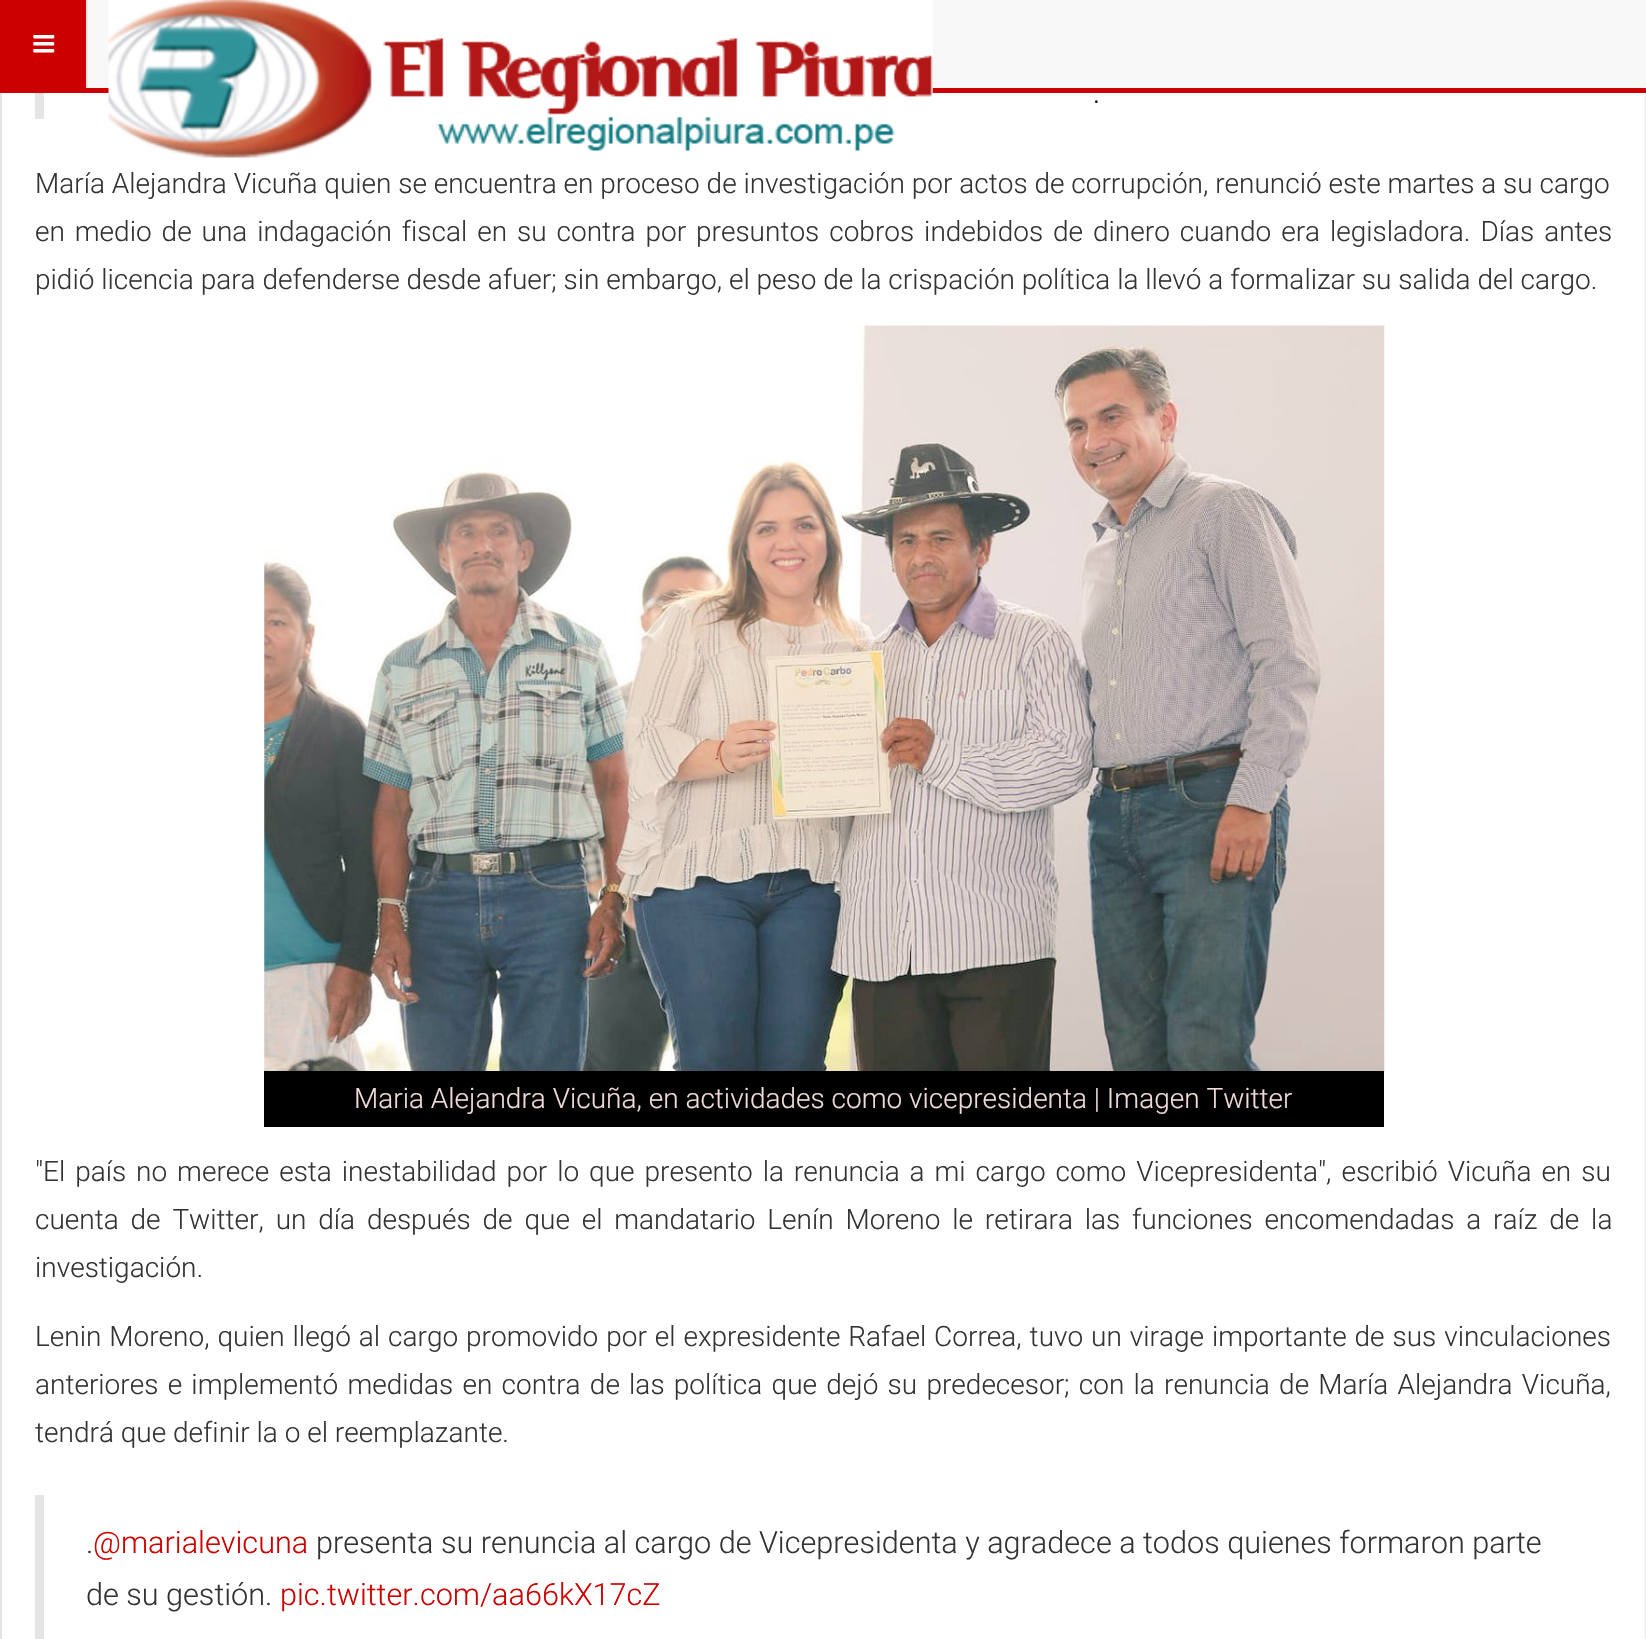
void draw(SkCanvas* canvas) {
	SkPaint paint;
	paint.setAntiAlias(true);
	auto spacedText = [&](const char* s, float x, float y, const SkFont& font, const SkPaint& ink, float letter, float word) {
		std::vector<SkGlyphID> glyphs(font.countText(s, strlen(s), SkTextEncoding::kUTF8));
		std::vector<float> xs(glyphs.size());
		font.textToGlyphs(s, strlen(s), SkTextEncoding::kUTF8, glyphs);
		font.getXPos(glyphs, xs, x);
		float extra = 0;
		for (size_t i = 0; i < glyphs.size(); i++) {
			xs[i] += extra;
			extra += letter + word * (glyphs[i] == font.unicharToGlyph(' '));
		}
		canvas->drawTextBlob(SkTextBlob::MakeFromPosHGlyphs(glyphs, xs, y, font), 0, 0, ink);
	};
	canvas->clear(0xffffffff);
	paint.setStroke(true);
	paint.setStrokeWidth(2);
	paint.setColor(0xffe5e5e5);
	canvas->drawRect(SkRect::MakeXYWH(1, -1, 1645, 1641), paint);
	paint.setStroke(false);
	paint.setColor(0xfff8f8f8);
	canvas->drawRect(SkRect::MakeXYWH(88, 0, 1558, 88), paint);
	paint.setColor(0xffcc0000);
	canvas->drawRect(SkRect::MakeXYWH(0, 88, 1646, 5), paint);
	canvas->drawRect(SkRect::MakeXYWH(0, 0, 86, 88), paint);
	paint.setColor(0xffe5e5e5);
	canvas->drawRect(SkRect::MakeXYWH(86, 0, 2, 88), paint);
	canvas->drawImageRect(SkImages::DeferredFromEncodedData(SkData::MakeFromFileName("img1.png")), SkRect::MakeXYWH(33, 35, 22, 18), SkSamplingOptions());
	canvas->drawImageRect(SkImages::DeferredFromEncodedData(SkData::MakeFromFileName("img2.png")), SkRect::MakeXYWH(108, 0, 825, 158), SkSamplingOptions());
	canvas->drawRect(SkRect::MakeXYWH(35, 93, 9, 26), paint);
	SkFont f1(fontMgr->matchFamilyStyle("Roboto Slab", SkFontStyle(300, SkFontStyle::kNormal_Width, SkFontStyle::kUpright_Slant)), 32);
	f1.setSubpixel(true);
	paint.setColor(0xff111111);
	canvas->drawString(".", 1093, 103, f1, paint);
	SkFont f2(fontMgr->matchFamilyStyle("Roboto", SkFontStyle(300, SkFontStyle::kNormal_Width, SkFontStyle::kUpright_Slant)), 28);
	f2.setSubpixel(true);
	paint.setColor(0xff333333);
	canvas->drawString("María Alejandra Vicuña quien se encuentra en proceso de investigación por actos de corrupción, renunció este martes a su cargo", 35, 193, f2, paint);
	spacedText("en medio de una indagación fiscal en su contra por presuntos cobros indebidos de dinero cuando era legisladora. Días antes", 35, 241, f2, paint, 0, 3.1);
	canvas->drawString("pidió licencia para defenderse desde afuer; sin embargo, el peso de la crispación política la llevó a formalizar su salida del cargo.", 35, 289, f2, paint);
	canvas->drawImageRect(SkImages::DeferredFromEncodedData(SkData::MakeFromFileName("img3.png")), SkRect::MakeXYWH(264, 325, 1121, 746), SkSamplingOptions());
	paint.setColor(0xff000000);
	canvas->drawRect(SkRect::MakeXYWH(264, 1071, 1120, 56), paint);
	paint.setColor(0xfff1dada);
	canvas->drawString("Maria Alejandra Vicuña, en actividades como vicepresidenta | Imagen Twitter", 354, 1108, f2, paint);
	paint.setColor(0xff333333);
	spacedText("\"El país no merece esta inestabilidad por lo que presento la renuncia a mi cargo como Vicepresidenta\", escribió Vicuña en su", 35, 1181, f2, paint, 0, 3.1);
	spacedText("cuenta de Twitter, un día después de que el mandatario Lenín Moreno le retirara las funciones encomendadas a raíz de la", 35, 1229, f2, paint, 0, 5);
	canvas->drawString("investigación.", 35, 1277, f2, paint);
	spacedText("Lenin Moreno, quien llegó al cargo promovido por el expresidente Rafael Correa, tuvo un virage importante de sus vinculaciones", 35, 1346, f2, paint, 0, 1.1);
	spacedText("anteriores e implementó medidas en contra de las política que dejó su predecesor; con la renuncia de María Alejandra Vicuña,", 35, 1394, f2, paint, 0, 2.4);
	canvas->drawString("tendrá que definir la o el reemplazante.", 35, 1442, f2, paint);
	paint.setColor(0xffe5e5e5);
	canvas->drawRect(SkRect::MakeXYWH(35, 1495, 9, 144), paint);
	SkFont f3(fontMgr->matchFamilyStyle("Roboto", SkFontStyle(300, SkFontStyle::kNormal_Width, SkFontStyle::kUpright_Slant)), 30.6);
	f3.setSubpixel(true);
	paint.setColor(0xff333333);
	canvas->drawString(".", 86, 1553, f3, paint);
	paint.setColor(0xffcc0000);
	canvas->drawString("@marialevicuna", 93, 1553, f3, paint);
	paint.setColor(0xff333333);
	canvas->drawString("presenta su renuncia al cargo de Vicepresidenta y agradece a todos quienes formaron parte", 316, 1553, f3, paint);
	canvas->drawString("de su gestión.", 86, 1605, f3, paint);
	paint.setColor(0xffcc0000);
	canvas->drawString("pic.twitter.com/aa66kX17cZ", 280, 1605, f3, paint);
}
